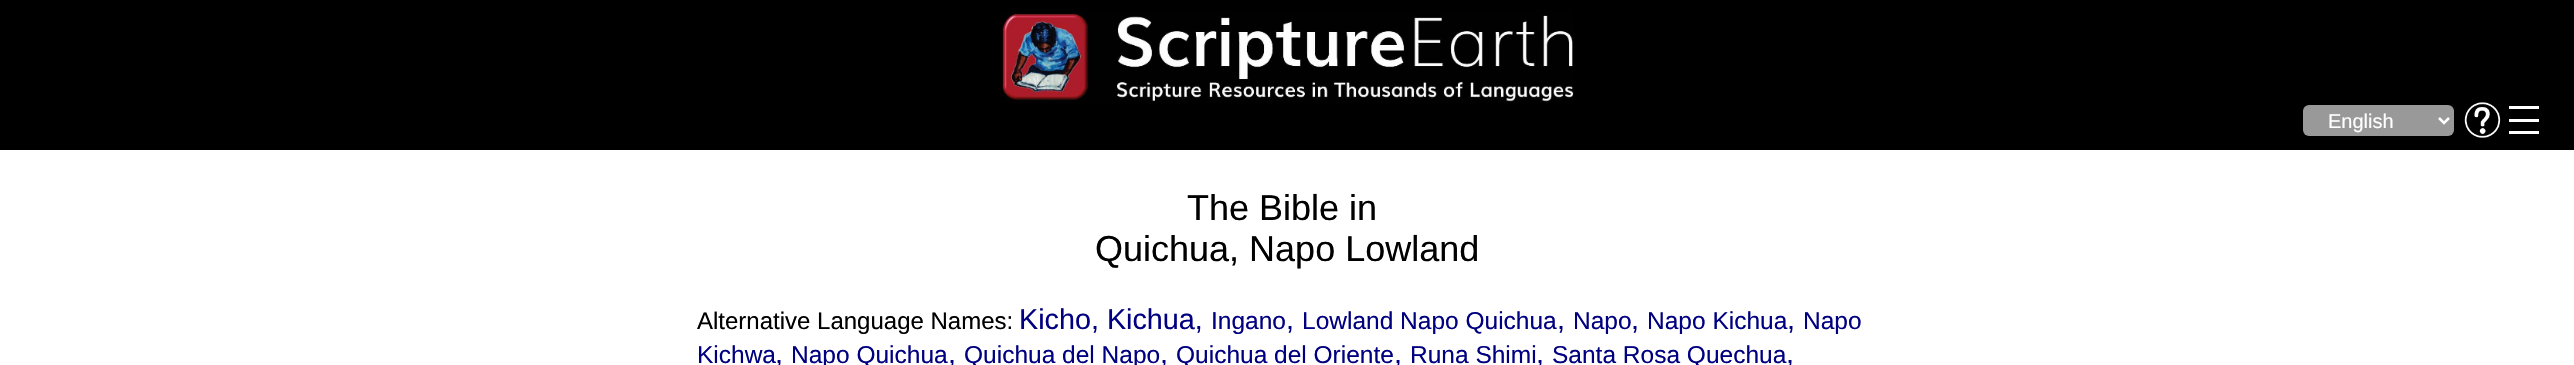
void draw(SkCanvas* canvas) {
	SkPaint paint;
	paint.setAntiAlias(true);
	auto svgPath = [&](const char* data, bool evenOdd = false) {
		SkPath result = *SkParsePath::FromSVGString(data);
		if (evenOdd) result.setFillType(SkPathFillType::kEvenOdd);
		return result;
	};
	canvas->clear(0xffffffff);
	paint.setColor(0xff000000);
	canvas->drawRect(SkRect::MakeXYWH(0, 0, 2574, 150), paint);
	canvas->drawImageRect(SkImages::DeferredFromEncodedData(SkData::MakeFromFileName("img1.png")), SkRect::MakeXYWH(1000, 10, 574, 93), SkSamplingOptions());
	paint.setColor(0xff999999);
	canvas->drawRoundRect(SkRect::MakeXYWH(2303, 105, 151, 31), 6, 6, paint);
	paint.setStroke(true);
	paint.setStrokeWidth(2.5);
	paint.setColor(0xffffffff);
	canvas->drawPath(svgPath("M2439 118L2444 123L2449 118"), paint);
	SkFont f1(fontMgr->matchFamilyStyle("Liberation Sans", SkFontStyle::Normal()), 20);
	f1.setSubpixel(true);
	paint.setStroke(false);
	canvas->drawString("English", 2328, 128, f1, paint);
	canvas->drawImageRect(SkImages::DeferredFromEncodedData(SkData::MakeFromFileName("img2.png")), SkRect::MakeXYWH(2464, 102, 37, 36), SkSamplingOptions());
	canvas->drawRect(SkRect::MakeXYWH(2509, 119, 30, 3), paint);
	canvas->drawRect(SkRect::MakeXYWH(2509, 106, 30, 3), paint);
	canvas->drawRect(SkRect::MakeXYWH(2509, 131, 30, 3), paint);
	SkFont f2(fontMgr->matchFamilyStyle("Liberation Sans", SkFontStyle::Normal()), 36);
	f2.setSubpixel(true);
	paint.setColor(0xff000000);
	canvas->drawString("The Bible in", 1187, 220, f2, paint);
	canvas->drawString("Quichua, Napo Lowland", 1095, 261, f2, paint);
	SkFont f3(fontMgr->matchFamilyStyle("Liberation Sans", SkFontStyle::Normal()), 24);
	f3.setSubpixel(true);
	canvas->drawString("Alternative Language Names:", 697, 329, f3, paint);
	SkFont f4(fontMgr->matchFamilyStyle("Liberation Sans", SkFontStyle::Normal()), 28.75);
	f4.setSubpixel(true);
	paint.setColor(0xff000080);
	canvas->drawString("Kicho, Kichua,", 1019, 329, f4, paint);
	SkFont f5(fontMgr->matchFamilyStyle("Liberation Sans", SkFontStyle::Normal()), 24.5);
	f5.setSubpixel(true);
	canvas->drawString("Ingano", 1211, 329, f5, paint);
	canvas->drawString(",", 1286, 329, f4, paint);
	canvas->drawString("Lowland Napo Quichua", 1302, 329, f5, paint);
	canvas->drawString(",", 1557, 329, f4, paint);
	canvas->drawString("Napo", 1573, 329, f5, paint);
	canvas->drawString(",", 1631, 329, f4, paint);
	canvas->drawString("Napo Kichua", 1647, 329, f5, paint);
	canvas->drawString(",", 1787, 329, f4, paint);
	canvas->drawString("Napo", 1803, 329, f5, paint);
	canvas->drawString("Kichwa", 697, 363, f5, paint);
	canvas->drawString(",", 775, 363, f4, paint);
	canvas->drawString("Napo Quichua", 791, 363, f5, paint);
	canvas->drawString(",", 948, 363, f4, paint);
	canvas->drawString("Quichua del Napo", 964, 363, f5, paint);
	canvas->drawString(",", 1160, 363, f4, paint);
	canvas->drawString("Quichua del Oriente", 1176, 363, f5, paint);
	canvas->drawString(",", 1394, 363, f4, paint);
	canvas->drawString("Runa Shimi", 1410, 363, f5, paint);
	canvas->drawString(",", 1536, 363, f4, paint);
	canvas->drawString("Santa Rosa Quechua", 1552, 363, f5, paint);
	canvas->drawString(",", 1786, 363, f4, paint);
}
